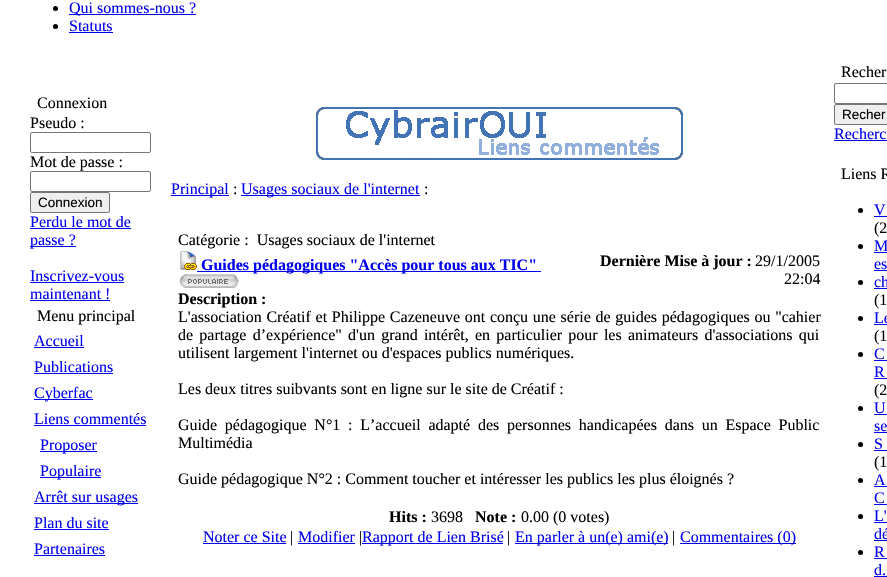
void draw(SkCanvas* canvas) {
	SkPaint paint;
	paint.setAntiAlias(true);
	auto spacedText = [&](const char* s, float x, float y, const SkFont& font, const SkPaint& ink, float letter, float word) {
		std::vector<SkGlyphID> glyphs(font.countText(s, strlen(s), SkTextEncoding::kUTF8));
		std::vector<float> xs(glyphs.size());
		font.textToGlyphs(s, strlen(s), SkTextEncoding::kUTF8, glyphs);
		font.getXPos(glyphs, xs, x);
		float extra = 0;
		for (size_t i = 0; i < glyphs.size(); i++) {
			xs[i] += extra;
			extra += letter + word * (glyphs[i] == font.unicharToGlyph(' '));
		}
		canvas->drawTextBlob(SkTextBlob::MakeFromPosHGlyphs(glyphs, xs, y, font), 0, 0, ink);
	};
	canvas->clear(0xffffffff);
	paint.setColor(0xff000000);
	canvas->drawCircle(55.5, 8.5, 2.5, paint);
	paint.setColor(0xff0000ee);
	canvas->drawRect(SkRect::MakeXYWH(69, 14, 127, 1), paint);
	SkFont f1(fontMgr->matchFamilyStyle("Liberation Serif", SkFontStyle::Normal()), 16);
	f1.setSubpixel(true);
	canvas->drawString("Qui sommes-nous ?", 69, 13, f1, paint);
	paint.setColor(0xff000000);
	canvas->drawCircle(55.5, 26.5, 2.5, paint);
	paint.setColor(0xff0000ee);
	canvas->drawString("Statuts", 69, 31, f1, paint);
	canvas->drawRect(SkRect::MakeXYWH(69, 32, 44, 1), paint);
	paint.setColor(0xff000000);
	canvas->drawString("Connexion", 37, 108, f1, paint);
	canvas->drawString("Pseudo :", 30, 128, f1, paint);
	paint.setStroke(true);
	paint.setStrokeWidth(1);
	paint.setColor(0xff767676);
	canvas->drawRoundRect(SkRect::MakeXYWH(30.5, 132.5, 120, 20), 1.5, 1.5, paint);
	paint.setStroke(false);
	paint.setColor(0xff000000);
	canvas->drawString("Mot de passe :", 30, 167, f1, paint);
	paint.setStroke(true);
	paint.setColor(0xff767676);
	canvas->drawRoundRect(SkRect::MakeXYWH(30.5, 171.5, 120, 20), 1.5, 1.5, paint);
	paint.setStroke(false);
	paint.setColor(0xffefefef);
	canvas->drawRoundRect(SkRect::MakeXYWH(30.5, 192.5, 79, 20), 1.5, 1.5, paint);
	paint.setStroke(true);
	paint.setColor(0xff767676);
	canvas->drawRoundRect(SkRect::MakeXYWH(30.5, 192.5, 79, 20), 1.5, 1.5, paint);
	SkFont f2(fontMgr->matchFamilyStyle("Liberation Sans", SkFontStyle::Normal()), 13.5);
	f2.setSubpixel(true);
	paint.setStroke(false);
	paint.setColor(0xff000000);
	canvas->drawString("Connexion", 38, 207, f2, paint);
	paint.setColor(0xff0000ee);
	canvas->drawString("Perdu le mot de", 30, 227, f1, paint);
	canvas->drawRect(SkRect::MakeXYWH(30, 228, 101, 1), paint);
	canvas->drawRect(SkRect::MakeXYWH(30, 246, 46, 1), paint);
	canvas->drawString("passe ?", 30, 245, f1, paint);
	canvas->drawString("Inscrivez-vous", 30, 281, f1, paint);
	canvas->drawRect(SkRect::MakeXYWH(30, 282, 94, 1), paint);
	canvas->drawString("maintenant !", 30, 299, f1, paint);
	canvas->drawRect(SkRect::MakeXYWH(30, 300, 80, 1), paint);
	paint.setColor(0xff000000);
	canvas->drawString("Menu principal", 37, 321, f1, paint);
	paint.setColor(0xff0000ee);
	canvas->drawString("Accueil", 34, 346, f1, paint);
	canvas->drawRect(SkRect::MakeXYWH(34, 347, 50, 1), paint);
	canvas->drawString("Publications", 34, 372, f1, paint);
	canvas->drawRect(SkRect::MakeXYWH(34, 373, 79, 1), paint);
	canvas->drawRect(SkRect::MakeXYWH(34, 399, 59, 1), paint);
	canvas->drawString("Cyberfac", 34, 398, f1, paint);
	canvas->drawString("Liens commentés", 34, 424, f1, paint);
	canvas->drawRect(SkRect::MakeXYWH(34, 425, 112, 1), paint);
	canvas->drawRect(SkRect::MakeXYWH(40, 451, 57, 1), paint);
	canvas->drawString("Proposer", 40, 450, f1, paint);
	canvas->drawRect(SkRect::MakeXYWH(40, 477, 61, 1), paint);
	canvas->drawString("Populaire", 40, 476, f1, paint);
	canvas->drawRect(SkRect::MakeXYWH(34, 503, 104, 1), paint);
	canvas->drawString("Arrêt sur usages", 34, 502, f1, paint);
	canvas->drawString("Plan du site", 34, 528, f1, paint);
	canvas->drawRect(SkRect::MakeXYWH(34, 529, 75, 1), paint);
	canvas->drawString("Partenaires", 34, 554, f1, paint);
	canvas->drawRect(SkRect::MakeXYWH(34, 555, 71, 1), paint);
	canvas->drawImageRect(SkImages::DeferredFromEncodedData(SkData::MakeFromFileName("img1.png")), SkRect::MakeXYWH(316, 107, 367, 53), SkSamplingOptions());
	canvas->drawRect(SkRect::MakeXYWH(171, 195, 58, 1), paint);
	canvas->drawString("Principal", 171, 194, f1, paint);
	paint.setColor(0xff000000);
	canvas->drawString(":", 233, 194, f1, paint);
	paint.setColor(0xff0000ee);
	canvas->drawRect(SkRect::MakeXYWH(241, 195, 179, 1), paint);
	canvas->drawString("Usages sociaux de l'internet", 241, 194, f1, paint);
	paint.setColor(0xff000000);
	canvas->drawString(":", 424, 194, f1, paint);
	canvas->drawString("Catégorie :  Usages sociaux de l'internet", 178, 245, f1, paint);
	canvas->drawImageRect(SkImages::DeferredFromEncodedData(SkData::MakeFromFileName("img2.png")), SkRect::MakeXYWH(180, 251, 17, 19), SkSamplingOptions());
	paint.setColor(0xff0000ee);
	canvas->drawRect(SkRect::MakeXYWH(197, 271, 344, 1), paint);
	SkFont f3(fontMgr->matchFamilyStyle("Liberation Serif", SkFontStyle::Bold()), 16);
	f3.setSubpixel(true);
	canvas->drawString("Guides pédagogiques \"Accès pour tous aux TIC\"", 201, 270, f3, paint);
	canvas->drawImageRect(SkImages::DeferredFromEncodedData(SkData::MakeFromFileName("img3.png")), SkRect::MakeXYWH(179, 274, 60, 14), SkSamplingOptions());
	paint.setColor(0xff000000);
	canvas->drawString("Dernière Mise à jour :", 600, 266, f3, paint);
	canvas->drawString("29/1/2005", 755, 266, f1, paint);
	canvas->drawString("22:04", 784, 284, f1, paint);
	canvas->drawString("Description :", 178, 304, f3, paint);
	spacedText("L'association Créatif et Philippe Cazeneuve ont conçu une série de guides pédagogiques ou \"cahier", 178, 322, f1, paint, 0, 0.7);
	spacedText("de partage d’expérience\" d'un grand intérêt, en particulier pour les animateurs d'associations qui", 178, 340, f1, paint, 0, 2.25);
	canvas->drawString("utilisent largement l'internet ou d'espaces publics numériques.", 178, 358, f1, paint);
	canvas->drawString("Les deux titres suibvants sont en ligne sur le site de Créatif :", 178, 394, f1, paint);
	spacedText("Guide pédagogique N°1 : L’accueil adapté des personnes handicapées dans un Espace Public", 178, 430, f1, paint, 0, 3.75);
	canvas->drawString("Multimédia", 178, 448, f1, paint);
	canvas->drawString("Guide pédagogique N°2 : Comment toucher et intéresser les publics les plus éloignés ?", 178, 484, f1, paint);
	canvas->drawString("Hits :", 389, 522, f3, paint);
	canvas->drawString("3698", 431, 522, f1, paint);
	canvas->drawString("Note :", 475, 522, f3, paint);
	canvas->drawString("0.00 (0 votes)", 521, 522, f1, paint);
	paint.setColor(0xff0000ee);
	canvas->drawString("Noter ce Site", 203, 542, f1, paint);
	canvas->drawRect(SkRect::MakeXYWH(203, 543, 83, 1), paint);
	paint.setColor(0xff000000);
	canvas->drawString("|", 290, 542, f1, paint);
	paint.setColor(0xff0000ee);
	canvas->drawString("Modifier", 298, 542, f1, paint);
	canvas->drawRect(SkRect::MakeXYWH(298, 543, 57, 1), paint);
	paint.setColor(0xff000000);
	canvas->drawString("|", 359, 542, f1, paint);
	paint.setColor(0xff0000ee);
	canvas->drawRect(SkRect::MakeXYWH(362, 543, 141, 1), paint);
	canvas->drawString("Rapport de Lien Brisé", 362, 542, f1, paint);
	paint.setColor(0xff000000);
	canvas->drawString("|", 507, 542, f1, paint);
	paint.setColor(0xff0000ee);
	canvas->drawRect(SkRect::MakeXYWH(515, 543, 153, 1), paint);
	canvas->drawString("En parler à un(e) ami(e)", 515, 542, f1, paint);
	paint.setColor(0xff000000);
	canvas->drawString("|", 672, 542, f1, paint);
	paint.setColor(0xff0000ee);
	canvas->drawRect(SkRect::MakeXYWH(680, 543, 116, 1), paint);
	canvas->drawString("Commentaires (0)", 680, 542, f1, paint);
	paint.setColor(0xff000000);
	canvas->drawString("Recher", 841, 77, f1, paint);
	paint.setStroke(true);
	paint.setColor(0xff767676);
	canvas->drawRoundRect(SkRect::MakeXYWH(834.5, 83.5, 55, 20), 1.5, 1.5, paint);
	paint.setStroke(false);
	paint.setColor(0xffefefef);
	canvas->drawRoundRect(SkRect::MakeXYWH(834.5, 104.5, 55, 20), 1.5, 1.5, paint);
	paint.setStroke(true);
	paint.setColor(0xff767676);
	canvas->drawRoundRect(SkRect::MakeXYWH(834.5, 104.5, 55, 20), 1.5, 1.5, paint);
	paint.setStroke(false);
	paint.setColor(0xff000000);
	canvas->drawString("Recher", 842, 119, f2, paint);
	paint.setColor(0xff0000ee);
	canvas->drawString("Recherc", 834, 139, f1, paint);
	canvas->drawRect(SkRect::MakeXYWH(834, 140, 53, 1), paint);
	paint.setColor(0xff000000);
	canvas->drawString("Liens R", 841, 179, f1, paint);
	canvas->drawCircle(860.5, 210.5, 2.5, paint);
	paint.setColor(0xff0000ee);
	canvas->drawString("V", 874, 215, f1, paint);
	canvas->drawRect(SkRect::MakeXYWH(874, 216, 13, 1), paint);
	paint.setColor(0xff000000);
	canvas->drawString("(2", 874, 233, f1, paint);
	canvas->drawCircle(860.5, 246.5, 2.5, paint);
	paint.setColor(0xff0000ee);
	canvas->drawString("M", 874, 251, f1, paint);
	canvas->drawRect(SkRect::MakeXYWH(874, 252, 13, 1), paint);
	canvas->drawString("es", 874, 269, f1, paint);
	canvas->drawRect(SkRect::MakeXYWH(874, 270, 13, 1), paint);
	paint.setColor(0xff000000);
	canvas->drawCircle(860.5, 282.5, 2.5, paint);
	paint.setColor(0xff0000ee);
	canvas->drawString("ch", 874, 287, f1, paint);
	canvas->drawRect(SkRect::MakeXYWH(874, 288, 13, 1), paint);
	paint.setColor(0xff000000);
	canvas->drawString("(1", 874, 305, f1, paint);
	canvas->drawCircle(860.5, 318.5, 2.5, paint);
	paint.setColor(0xff0000ee);
	canvas->drawString("Le", 874, 323, f1, paint);
	canvas->drawRect(SkRect::MakeXYWH(874, 324, 13, 1), paint);
	paint.setColor(0xff000000);
	canvas->drawString("(1", 874, 341, f1, paint);
	canvas->drawCircle(860.5, 354.5, 2.5, paint);
	paint.setColor(0xff0000ee);
	canvas->drawString("C", 874, 359, f1, paint);
	canvas->drawRect(SkRect::MakeXYWH(874, 360, 13, 1), paint);
	canvas->drawString("R", 874, 377, f1, paint);
	canvas->drawRect(SkRect::MakeXYWH(874, 378, 13, 1), paint);
	paint.setColor(0xff000000);
	canvas->drawString("(2", 874, 395, f1, paint);
	canvas->drawCircle(860.5, 408.5, 2.5, paint);
	paint.setColor(0xff0000ee);
	canvas->drawString("U", 874, 413, f1, paint);
	canvas->drawRect(SkRect::MakeXYWH(874, 414, 13, 1), paint);
	canvas->drawString("se", 874, 431, f1, paint);
	canvas->drawRect(SkRect::MakeXYWH(874, 432, 13, 1), paint);
	paint.setColor(0xff000000);
	canvas->drawCircle(860.5, 444.5, 2.5, paint);
	paint.setColor(0xff0000ee);
	canvas->drawString("S", 874, 449, f1, paint);
	canvas->drawRect(SkRect::MakeXYWH(874, 450, 13, 1), paint);
	paint.setColor(0xff000000);
	canvas->drawString("(1", 874, 467, f1, paint);
	canvas->drawCircle(860.5, 480.5, 2.5, paint);
	paint.setColor(0xff0000ee);
	canvas->drawString("A", 874, 485, f1, paint);
	canvas->drawRect(SkRect::MakeXYWH(874, 486, 13, 1), paint);
	canvas->drawString("C", 874, 503, f1, paint);
	canvas->drawRect(SkRect::MakeXYWH(874, 504, 13, 1), paint);
	paint.setColor(0xff000000);
	canvas->drawCircle(860.5, 516.5, 2.5, paint);
	paint.setColor(0xff0000ee);
	canvas->drawString("L'", 874, 521, f1, paint);
	canvas->drawRect(SkRect::MakeXYWH(874, 522, 13, 1), paint);
	canvas->drawString("dé", 874, 539, f1, paint);
	canvas->drawRect(SkRect::MakeXYWH(874, 540, 13, 1), paint);
	paint.setColor(0xff000000);
	canvas->drawCircle(860.5, 552.5, 2.5, paint);
	paint.setColor(0xff0000ee);
	canvas->drawString("R", 874, 557, f1, paint);
	canvas->drawRect(SkRect::MakeXYWH(874, 558, 13, 1), paint);
	canvas->drawString("d.", 874, 575, f1, paint);
	canvas->drawRect(SkRect::MakeXYWH(874, 576, 13, 1), paint);
}
